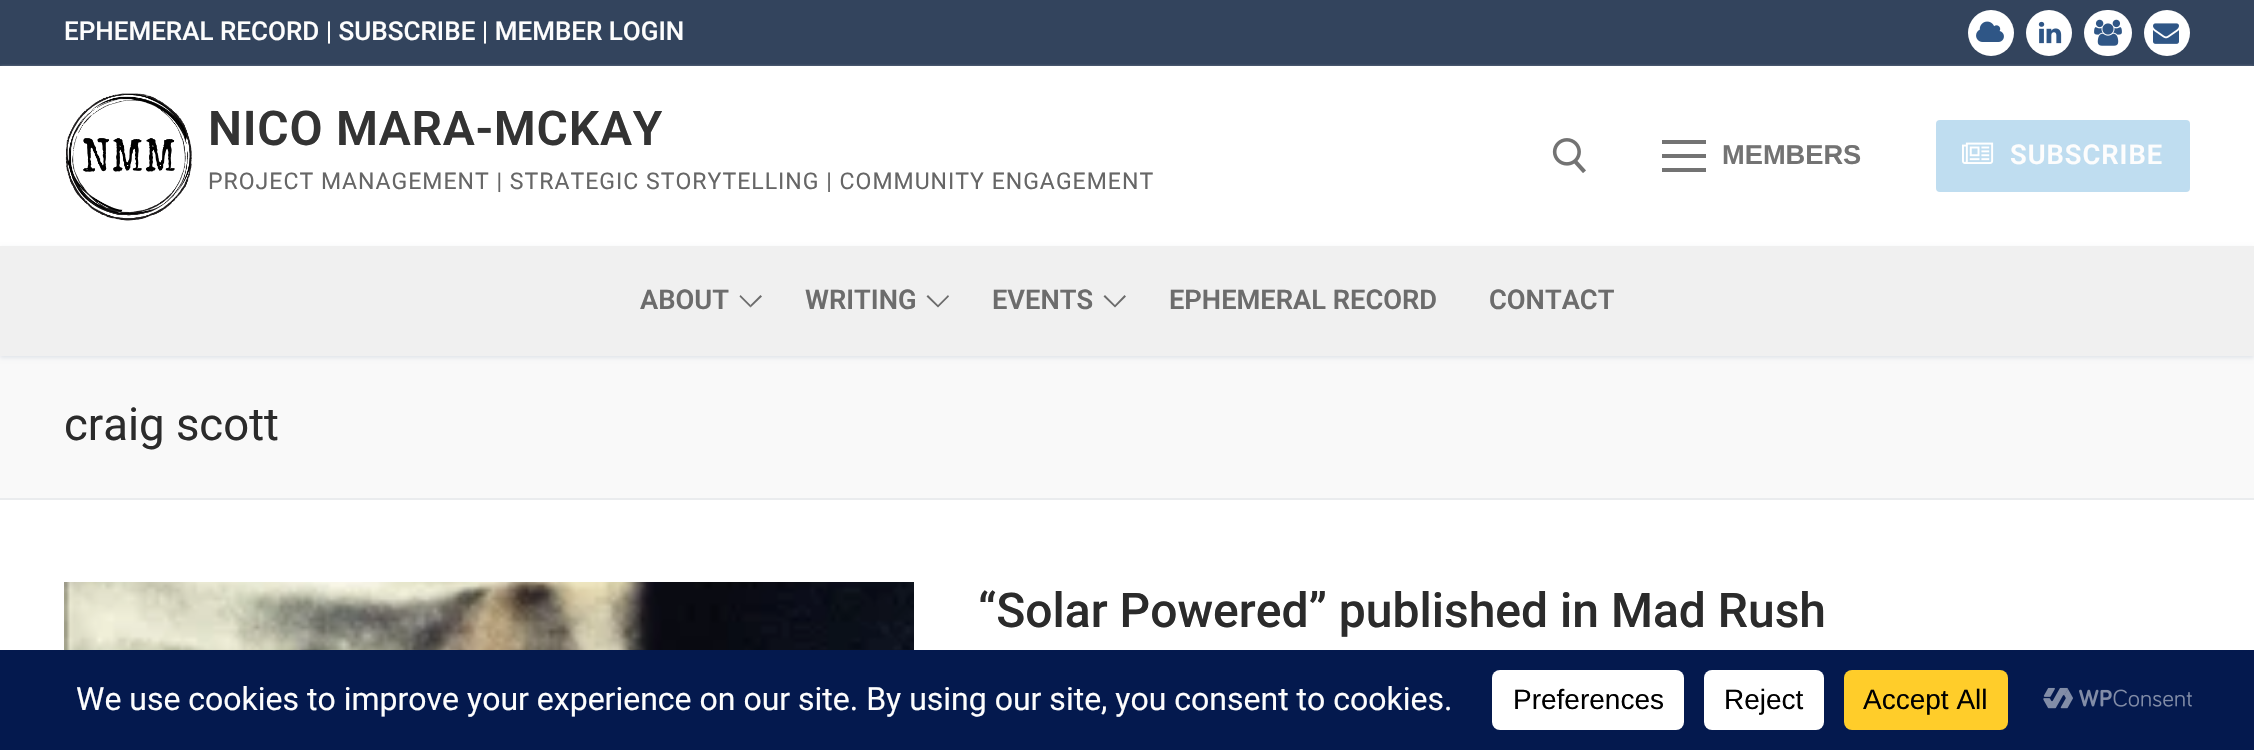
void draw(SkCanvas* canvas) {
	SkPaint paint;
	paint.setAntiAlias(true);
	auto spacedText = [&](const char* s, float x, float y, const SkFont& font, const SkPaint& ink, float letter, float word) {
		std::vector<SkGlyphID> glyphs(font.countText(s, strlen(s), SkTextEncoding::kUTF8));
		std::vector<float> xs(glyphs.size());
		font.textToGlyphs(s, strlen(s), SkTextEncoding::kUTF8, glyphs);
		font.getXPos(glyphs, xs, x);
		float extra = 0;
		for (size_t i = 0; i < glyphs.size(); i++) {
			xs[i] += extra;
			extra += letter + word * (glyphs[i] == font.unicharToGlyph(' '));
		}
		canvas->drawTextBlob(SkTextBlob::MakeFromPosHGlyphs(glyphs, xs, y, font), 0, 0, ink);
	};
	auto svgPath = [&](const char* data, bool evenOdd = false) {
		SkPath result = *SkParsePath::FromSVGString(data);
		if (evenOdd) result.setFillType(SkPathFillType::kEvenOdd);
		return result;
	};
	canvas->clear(0xffffffff);
	paint.setColor(0xff33445d);
	canvas->drawRect(SkRect::MakeXYWH(0, 0, 2254, 66), paint);
	SkFont f1(fontMgr->matchFamilyStyle("Roboto", SkFontStyle(500, SkFontStyle::kNormal_Width, SkFontStyle::kUpright_Slant)), 26);
	f1.setSubpixel(true);
	paint.setColor(0xfffdfdfd);
	canvas->drawString("EPHEMERAL RECORD | SUBSCRIBE | MEMBER LOGIN", 64, 40, f1, paint);
	paint.setColor(0xffffffff);
	canvas->drawCircle(1991, 33, 23, paint);
	canvas->drawImageRect(SkImages::DeferredFromEncodedData(SkData::MakeFromFileName("img1.png")), SkRect::MakeXYWH(1976, 21, 28, 21), SkSamplingOptions());
	canvas->drawCircle(2049, 33, 23, paint);
	canvas->drawImageRect(SkImages::DeferredFromEncodedData(SkData::MakeFromFileName("img2.png")), SkRect::MakeXYWH(2038, 21, 24, 23), SkSamplingOptions());
	canvas->drawRoundRect(SkRect::MakeXYWH(2084, 10, 48, 46), 23, 23, paint);
	canvas->drawImageRect(SkImages::DeferredFromEncodedData(SkData::MakeFromFileName("img3.png")), SkRect::MakeXYWH(2094, 19, 28, 27), SkSamplingOptions());
	canvas->drawCircle(2167, 33, 23, paint);
	canvas->drawImageRect(SkImages::DeferredFromEncodedData(SkData::MakeFromFileName("img4.png")), SkRect::MakeXYWH(2153, 23, 26, 21), SkSamplingOptions());
	canvas->save();
	canvas->clipRect(SkRect::MakeXYWH(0, 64, 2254, 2));
	paint.setColor(0xffe1e5ea);
	paint.setMaskFilter(SkMaskFilter::MakeBlur(kNormal_SkBlurStyle, 2));
	canvas->drawRect(SkRect::MakeXYWH(0, 68, 2254, 180), paint);
	paint.setMaskFilter(nullptr);
	canvas->restore();
	canvas->drawImageRect(SkImages::DeferredFromEncodedData(SkData::MakeFromFileName("img5.png")), SkRect::MakeXYWH(65, 93, 127, 128), SkSamplingOptions());
	SkFont f2(fontMgr->matchFamilyStyle("Roboto", SkFontStyle(600, SkFontStyle::kNormal_Width, SkFontStyle::kUpright_Slant)), 48);
	f2.setSubpixel(true);
	paint.setColor(0xff333333);
	spacedText("NICO MARA-MCKAY", 208, 145, f2, paint, 0.75, 0);
	SkFont f3(fontMgr->matchFamilyStyle("Roboto", SkFontStyle::Normal()), 23.05);
	f3.setSubpixel(true);
	paint.setColor(0xff666666);
	spacedText("PROJECT MANAGEMENT | STRATEGIC STORYTELLING | COMMUNITY ENGAGEMENT", 208, 189, f3, paint, 1, 0);
	canvas->drawImageRect(SkImages::DeferredFromEncodedData(SkData::MakeFromFileName("img6.png")), SkRect::MakeXYWH(1552, 138, 34, 35), SkSamplingOptions());
	paint.setColor(0xff737373);
	canvas->drawRect(SkRect::MakeXYWH(1662, 154, 44, 4), paint);
	canvas->drawRect(SkRect::MakeXYWH(1662, 140, 44, 4), paint);
	canvas->drawRect(SkRect::MakeXYWH(1662, 168, 44, 4), paint);
	SkFont f4(fontMgr->matchFamilyStyle("Liberation Sans", SkFontStyle::Bold()), 27.25);
	f4.setSubpixel(true);
	canvas->drawString("MEMBERS", 1722, 164, f4, paint);
	paint.setColor(0xffbfddf0);
	canvas->drawRoundRect(SkRect::MakeXYWH(1936, 120, 254, 72), 4, 4, paint);
	canvas->drawImageRect(SkImages::DeferredFromEncodedData(SkData::MakeFromFileName("img7.png")), SkRect::MakeXYWH(1962, 142, 32, 22), SkSamplingOptions());
	SkFont f5(fontMgr->matchFamilyStyle("Roboto", SkFontStyle(600, SkFontStyle::kNormal_Width, SkFontStyle::kUpright_Slant)), 27.25);
	f5.setSubpixel(true);
	paint.setColor(0xfffdfdfd);
	spacedText("SUBSCRIBE", 2010, 164, f5, paint, 1, 0);
	paint.setColor(0xfff9f9f9);
	canvas->drawRect(SkRect::MakeXYWH(0, 356, 2254, 142), paint);
	paint.setColor(0xffe1e5ea);
	paint.setMaskFilter(SkMaskFilter::MakeBlur(kNormal_SkBlurStyle, 2));
	canvas->drawRect(SkRect::MakeXYWH(0, 248, 2254, 110), paint);
	paint.setMaskFilter(nullptr);
	paint.setColor(0xfff0f0f0);
	canvas->drawRect(SkRect::MakeXYWH(0, 246, 2254, 110), paint);
	paint.setColor(0xff6c6c6c);
	canvas->drawString("ABOUT", 640, 309, f5, paint);
	canvas->drawPath(svgPath("M750.5 307.5L739.5 296.5L740.5 295L750.5 305Z"), paint);
	paint.setColor(0x8c000000);
	canvas->drawPath(svgPath("M762 296.5L750.5 307.5V305L760.5 295Z"), paint);
	paint.setColor(0xff6c6c6c);
	canvas->drawString("WRITING", 805, 309, f5, paint);
	canvas->drawPath(svgPath("M938 307.5L926.5 296.5L928 295L938 305ZM949 296.5L938 307.5V305L948 295Z"), paint);
	canvas->drawString("EVENTS", 992, 309, f5, paint);
	canvas->drawPath(svgPath("M1115 307.5L1103.5 296.5L1105 295L1115 305ZM1126 296.5L1115 307.5V305L1124.5 295Z"), paint);
	canvas->drawString("EPHEMERAL RECORD", 1169, 309, f5, paint);
	canvas->drawString("CONTACT", 1489, 309, f5, paint);
	paint.setColor(0xffeaecee);
	canvas->drawRect(SkRect::MakeXYWH(0, 498, 2254, 2), paint);
	SkFont f6(fontMgr->matchFamilyStyle("Roboto", SkFontStyle::Normal()), 45.5);
	f6.setSubpixel(true);
	paint.setColor(0xff2b2b2b);
	canvas->drawString("craig scott", 64, 440, f6, paint);
	canvas->drawImageRect(SkImages::DeferredFromEncodedData(SkData::MakeFromFileName("img8.png")), SkRect::MakeXYWH(64, 582, 850, 68), SkSamplingOptions());
	SkFont f7(fontMgr->matchFamilyStyle("Roboto", SkFontStyle(500, SkFontStyle::kNormal_Width, SkFontStyle::kUpright_Slant)), 48);
	f7.setSubpixel(true);
	canvas->drawString("“Solar Powered” published in Mad Rush", 978, 627, f7, paint);
	paint.setColor(0xff04194e);
	canvas->drawRect(SkRect::MakeXYWH(0, 650, 2254, 100), paint);
	SkFont f8(fontMgr->matchFamilyStyle("Roboto", SkFontStyle::Normal()), 32);
	f8.setSubpixel(true);
	paint.setColor(0xfffdfdfd);
	canvas->drawString("We use cookies to improve your experience on our site. By using our site, you consent to cookies.", 76, 710, f8, paint);
	paint.setColor(0xffffffff);
	canvas->drawRoundRect(SkRect::MakeXYWH(1492, 670, 192, 60), 8, 8, paint);
	SkFont f9(fontMgr->matchFamilyStyle("Liberation Sans", SkFontStyle::Normal()), 28);
	f9.setSubpixel(true);
	paint.setColor(0xff000000);
	canvas->drawString("Preferences", 1513, 709, f9, paint);
	paint.setColor(0xffffffff);
	canvas->drawRoundRect(SkRect::MakeXYWH(1704, 670, 120, 60), 8, 8, paint);
	paint.setColor(0xff000000);
	canvas->drawString("Reject", 1724, 709, f9, paint);
	paint.setColor(0xffffcd2a);
	canvas->drawRoundRect(SkRect::MakeXYWH(1844, 670, 164, 60), 8, 8, paint);
	paint.setColor(0xff000000);
	canvas->drawString("Accept All", 1863, 709, f9, paint);
	canvas->drawImageRect(SkImages::DeferredFromEncodedData(SkData::MakeFromFileName("img9.png")), SkRect::MakeXYWH(2043, 687, 149, 22), SkSamplingOptions());
}
